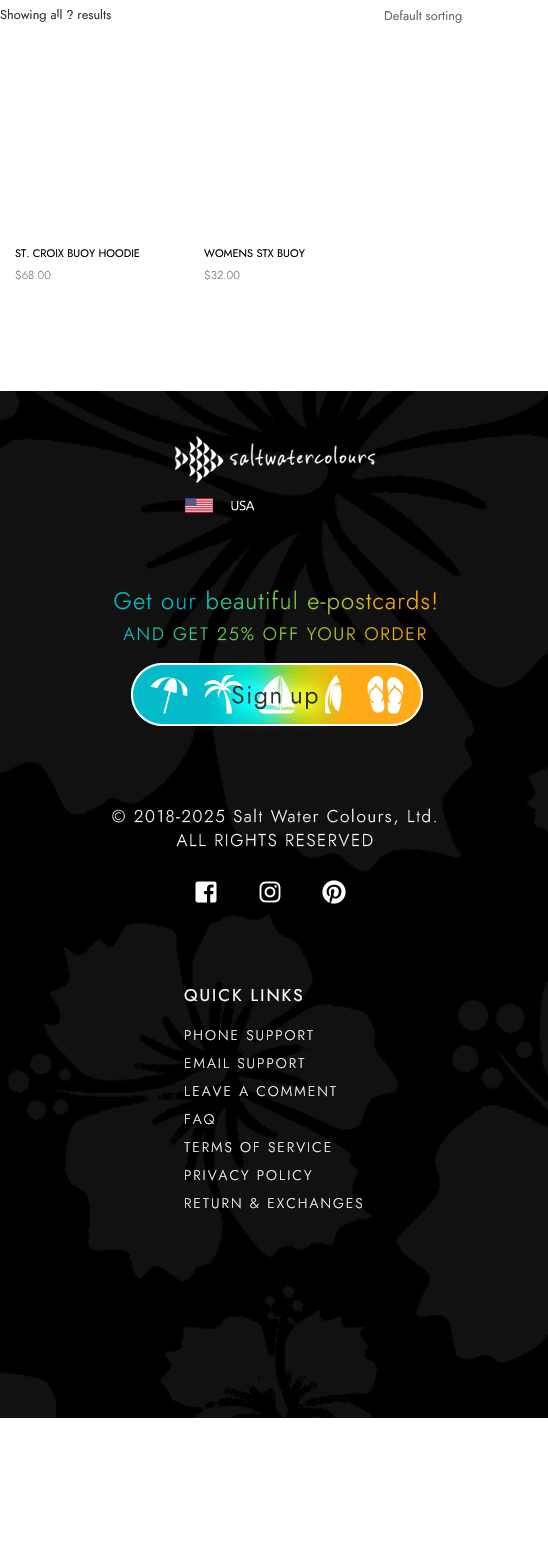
void draw(SkCanvas* canvas) {
	SkPaint paint;
	paint.setAntiAlias(true);
	auto spacedText = [&](const char* s, float x, float y, const SkFont& font, const SkPaint& ink, float letter, float word) {
		std::vector<SkGlyphID> glyphs(font.countText(s, strlen(s), SkTextEncoding::kUTF8));
		std::vector<float> xs(glyphs.size());
		font.textToGlyphs(s, strlen(s), SkTextEncoding::kUTF8, glyphs);
		font.getXPos(glyphs, xs, x);
		float extra = 0;
		for (size_t i = 0; i < glyphs.size(); i++) {
			xs[i] += extra;
			extra += letter + word * (glyphs[i] == font.unicharToGlyph(' '));
		}
		canvas->drawTextBlob(SkTextBlob::MakeFromPosHGlyphs(glyphs, xs, y, font), 0, 0, ink);
	};
	canvas->clear(0xffffffff);
	SkFont f1(fontMgr->matchFamilyStyle("Jost", SkFontStyle::Normal()), 12.75);
	f1.setSubpixel(true);
	paint.setColor(0xff333333);
	canvas->drawString("Showing all 2 results", 0, 19, f1, paint);
	paint.setColor(0xff666666);
	canvas->drawString("Default sorting", 384, 20, f1, paint);
	SkFont f2(fontMgr->matchFamilyStyle("Jost", SkFontStyle::Normal()), 11);
	f2.setSubpixel(true);
	paint.setColor(0xff000000);
	canvas->drawString("ST. CROIX BUOY HOODIE", 15, 257, f2, paint);
	SkFont f3(fontMgr->matchFamilyStyle("Jost", SkFontStyle(300, SkFontStyle::kNormal_Width, SkFontStyle::kUpright_Slant)), 11.5);
	f3.setSubpixel(true);
	paint.setColor(0xff707069);
	canvas->drawString("$68.00", 15, 279, f3, paint);
	paint.setColor(0xff000000);
	canvas->drawString("WOMENS STX BUOY", 204, 257, f2, paint);
	paint.setColor(0xff707069);
	canvas->drawString("$32.00", 204, 279, f3, paint);
	canvas->drawImageRect(SkImages::DeferredFromEncodedData(SkData::MakeFromFileName("img1.png")), SkRect::MakeXYWH(40, 12, 33, 10), SkSamplingOptions());
	canvas->drawImageRect(SkImages::DeferredFromEncodedData(SkData::MakeFromFileName("img2.png")), SkRect::MakeXYWH(0, 391, 548, 1027), SkSamplingOptions());
	canvas->drawImageRect(SkImages::DeferredFromEncodedData(SkData::MakeFromFileName("img3.png")), SkRect::MakeXYWH(175, 436, 200, 77), SkSamplingOptions());
	canvas->drawImageRect(SkImages::DeferredFromEncodedData(SkData::MakeFromFileName("img4.png")), SkRect::MakeXYWH(112, 590, 324, 257), SkSamplingOptions());
	canvas->drawImageRect(SkImages::DeferredFromEncodedData(SkData::MakeFromFileName("img5.png")), SkRect::MakeXYWH(195, 881, 22, 22), SkSamplingOptions());
	canvas->drawImageRect(SkImages::DeferredFromEncodedData(SkData::MakeFromFileName("img6.png")), SkRect::MakeXYWH(259, 881, 22, 22), SkSamplingOptions());
	canvas->drawImageRect(SkImages::DeferredFromEncodedData(SkData::MakeFromFileName("img7.png")), SkRect::MakeXYWH(322, 880, 24, 24), SkSamplingOptions());
	SkFont f4(fontMgr->matchFamilyStyle("Jost", SkFontStyle::Normal()), 17);
	f4.setSubpixel(true);
	paint.setColor(0xffffffff);
	spacedText("QUICK LINKS", 184, 1001, f4, paint, 2, 0);
	SkFont f5(fontMgr->matchFamilyStyle("Jost", SkFontStyle(300, SkFontStyle::kNormal_Width, SkFontStyle::kUpright_Slant)), 14);
	f5.setSubpixel(true);
	spacedText("PHONE SUPPORT", 184, 1040, f5, paint, 2, 0);
	spacedText("EMAIL SUPPORT", 184, 1068, f5, paint, 2, 0);
	spacedText("LEAVE A COMMENT", 184, 1096, f5, paint, 2, 0);
	spacedText("FAQ", 184, 1124, f5, paint, 2, 0);
	spacedText("TERMS OF SERVICE", 184, 1152, f5, paint, 2, 0);
	spacedText("PRIVACY POLICY", 184, 1180, f5, paint, 2, 0);
	spacedText("RETURN & EXCHANGES", 184, 1208, f5, paint, 2, 0);
}
